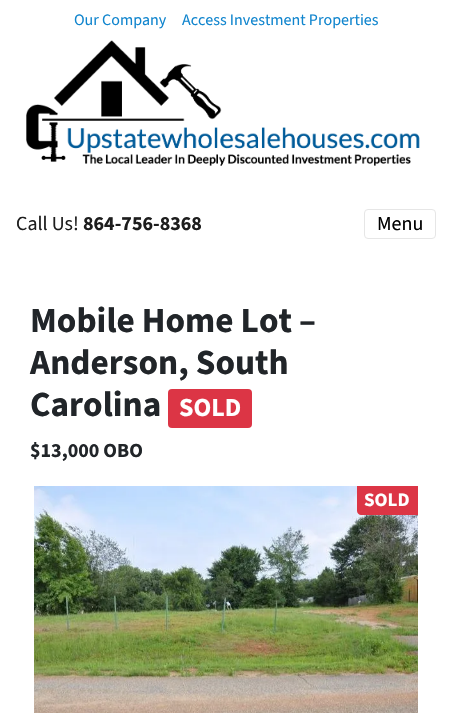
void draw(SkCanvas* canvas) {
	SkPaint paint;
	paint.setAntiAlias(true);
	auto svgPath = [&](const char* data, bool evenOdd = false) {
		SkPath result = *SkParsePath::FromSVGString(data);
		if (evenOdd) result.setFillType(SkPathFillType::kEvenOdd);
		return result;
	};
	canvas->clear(0xffffffff);
	SkFont f1(fontMgr->matchFamilyStyle("Source Sans 3", SkFontStyle::Normal()), 16);
	f1.setSubpixel(true);
	paint.setColor(0xff1085ce);
	canvas->drawString("Our Company", 74, 25, f1, paint);
	canvas->drawString("Access Investment Properties", 182, 25, f1, paint);
	canvas->drawImageRect(SkImages::DeferredFromEncodedData(SkData::MakeFromFileName("img1.png")), SkRect::MakeXYWH(26, 40, 394, 126), SkSamplingOptions());
	SkFont f2(fontMgr->matchFamilyStyle("Source Sans 3", SkFontStyle::Normal()), 20);
	f2.setSubpixel(true);
	paint.setColor(0xff1d1d1d);
	canvas->drawString("Call Us!", 16, 230, f2, paint);
	SkFont f3(fontMgr->matchFamilyStyle("Source Sans 3", SkFontStyle::Bold()), 20);
	f3.setSubpixel(true);
	canvas->drawString("864-756-8368", 83, 230, f3, paint);
	paint.setStroke(true);
	paint.setStrokeWidth(1);
	paint.setColor(0xffe6e6e6);
	canvas->drawRoundRect(SkRect::MakeXYWH(364.5, 209.5, 71, 29), 3.5, 3.5, paint);
	paint.setStroke(false);
	paint.setColor(0xff000000);
	canvas->drawString("Menu", 377, 230, f2, paint);
	SkFont f4(fontMgr->matchFamilyStyle("Source Sans 3", SkFontStyle::Bold()), 35.25);
	f4.setSubpixel(true);
	paint.setColor(0xff212529);
	canvas->drawString("Mobile Home Lot –", 30, 332, f4, paint);
	canvas->drawString("Anderson, South", 30, 374, f4, paint);
	canvas->drawString("Carolina", 30, 416, f4, paint);
	paint.setColor(0xffdc3545);
	canvas->drawRoundRect(SkRect::MakeXYWH(168, 389, 84, 39), 4, 4, paint);
	SkFont f5(fontMgr->matchFamilyStyle("Source Sans 3", SkFontStyle::Bold()), 26);
	f5.setSubpixel(true);
	paint.setColor(0xffffffff);
	canvas->drawString("SOLD", 179, 416, f5, paint);
	paint.setColor(0xff212529);
	canvas->drawString("$13,000 OBO", 30, 457, f3, paint);
	canvas->drawImageRect(SkImages::DeferredFromEncodedData(SkData::MakeFromFileName("img2.png")), SkRect::MakeXYWH(34, 486, 384, 227), SkSamplingOptions());
	paint.setColor(0xffdc3545);
	canvas->drawPath(svgPath("M357 486H418V515H361C359 515 357 513 357 511Z"), paint);
	SkFont f6(fontMgr->matchFamilyStyle("Source Sans 3", SkFontStyle::Bold()), 19);
	f6.setSubpixel(true);
	paint.setColor(0xffffffff);
	canvas->drawString("SOLD", 364, 506, f6, paint);
}
